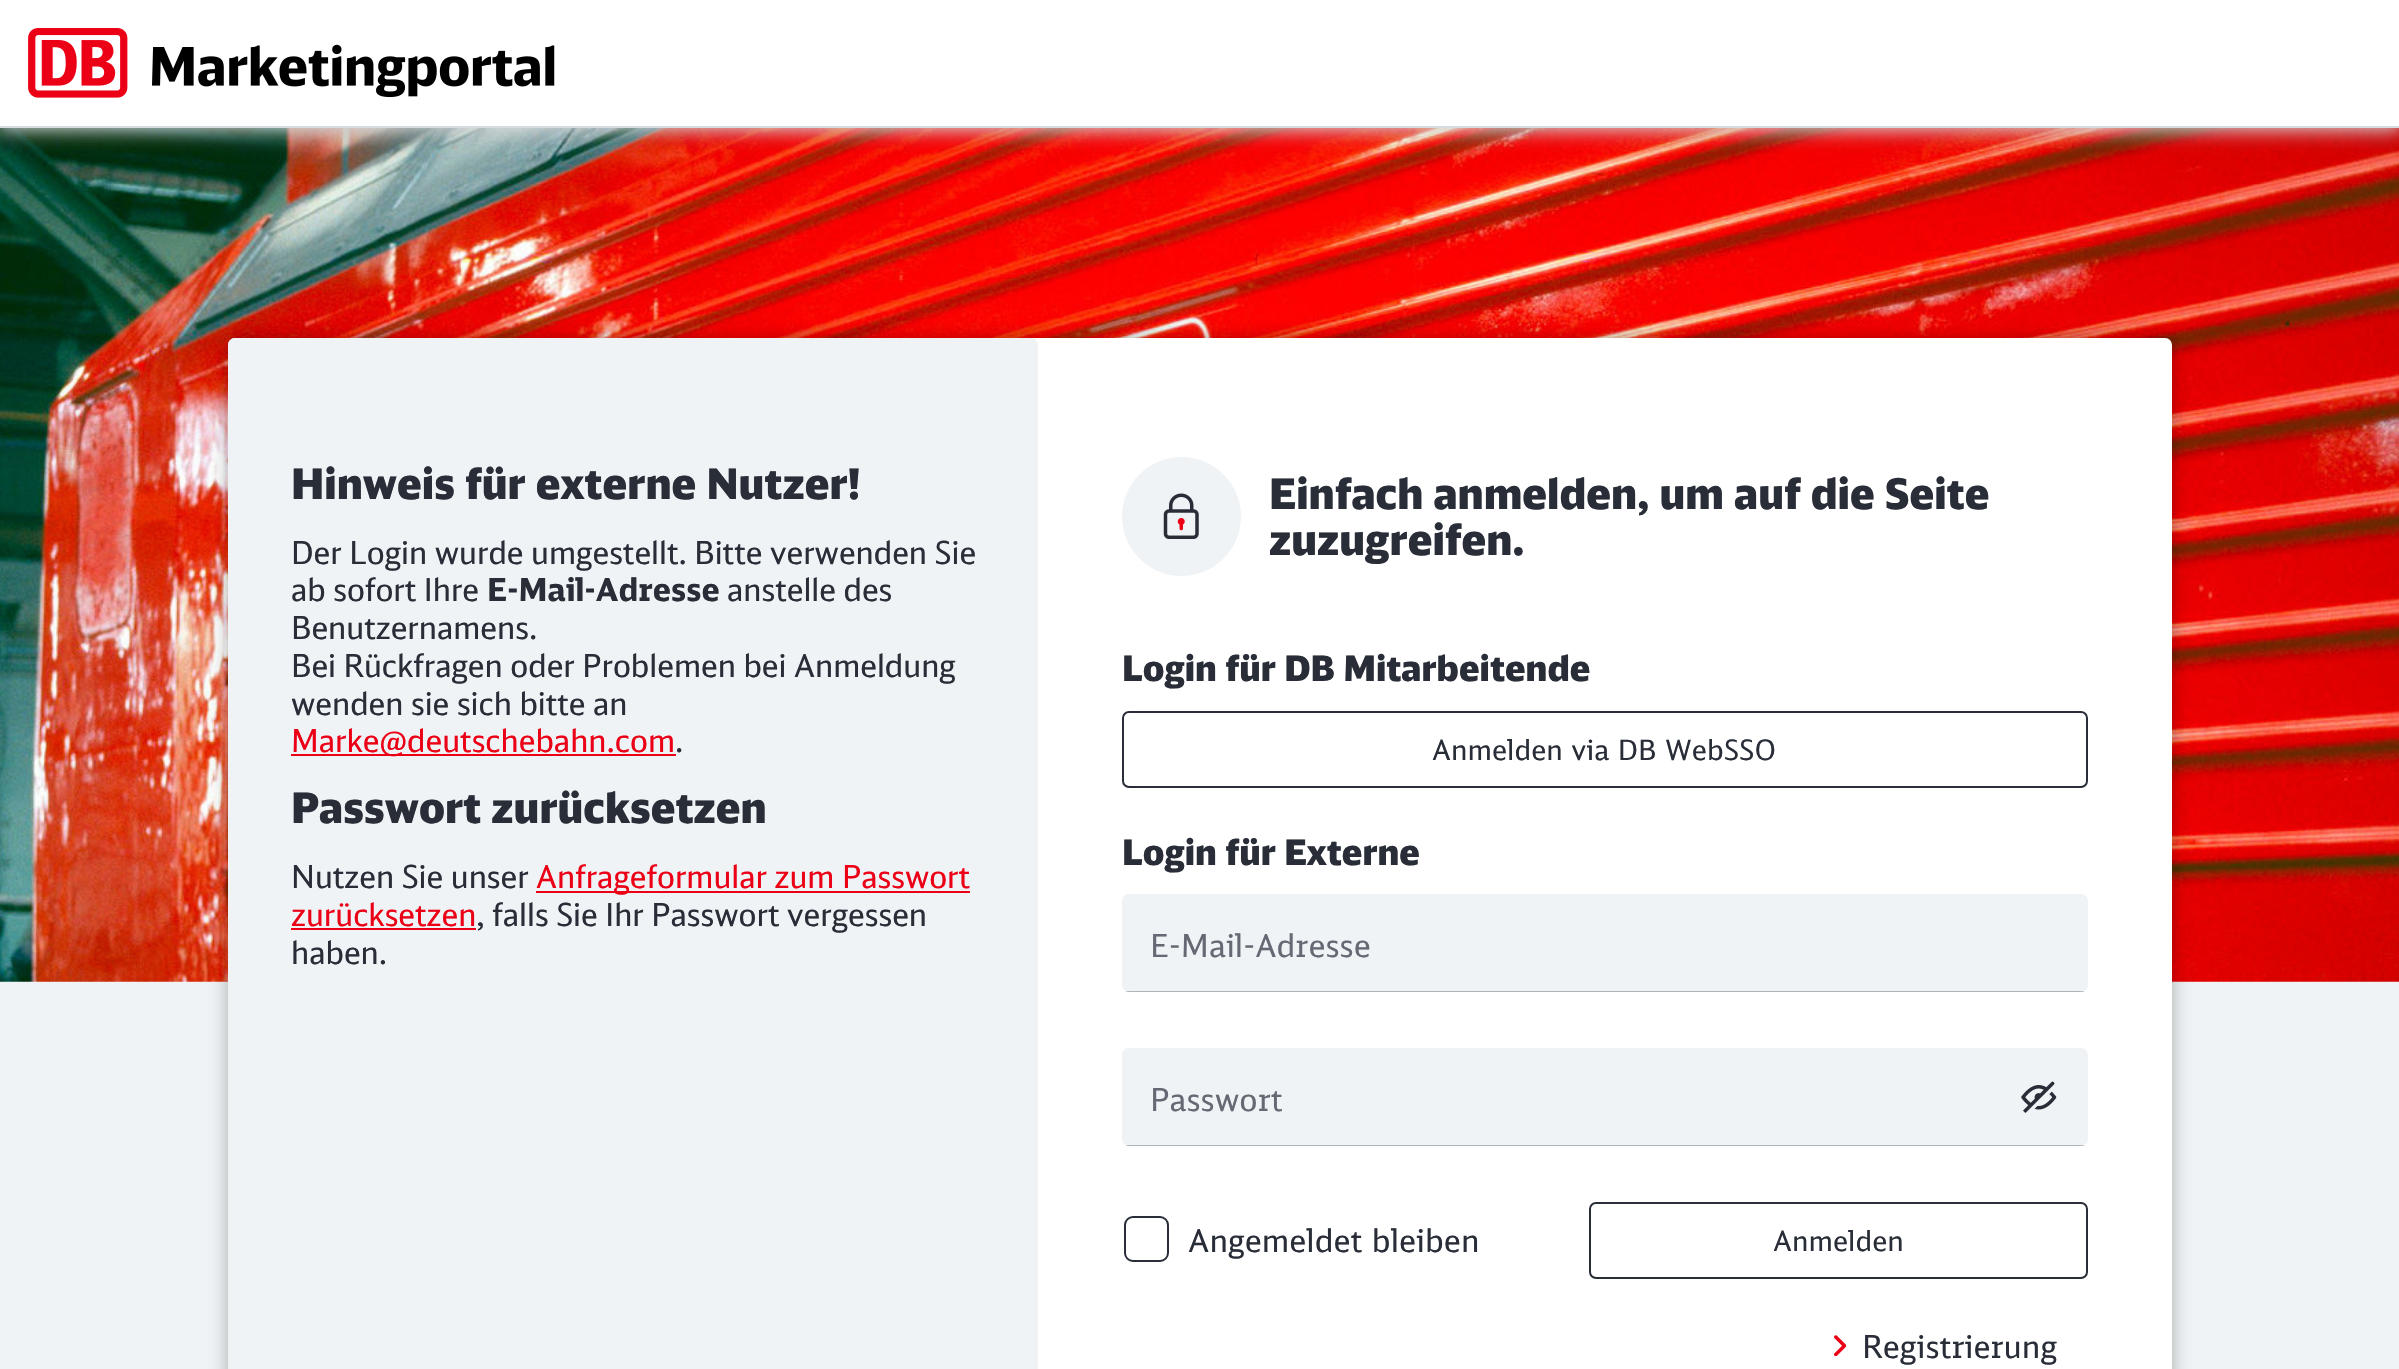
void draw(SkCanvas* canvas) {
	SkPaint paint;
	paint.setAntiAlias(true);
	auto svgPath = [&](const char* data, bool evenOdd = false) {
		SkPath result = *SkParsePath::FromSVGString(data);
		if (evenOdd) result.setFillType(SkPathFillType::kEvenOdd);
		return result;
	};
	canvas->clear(0xfff0f3f5);
	canvas->drawImageRect(SkImages::DeferredFromEncodedData(SkData::MakeFromFileName("img2.png")), SkRect::MakeXYWH(0, 128, 2399, 854), SkSamplingOptions());
	paint.setColor(0xfff0f3f5);
	paint.setMaskFilter(SkMaskFilter::MakeBlur(kNormal_SkBlurStyle, 9));
	canvas->drawRect(SkRect::MakeXYWH(-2, -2, 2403, 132), paint);
	paint.setMaskFilter(nullptr);
	paint.setColor(0x1a000000);
	paint.setMaskFilter(SkMaskFilter::MakeBlur(kNormal_SkBlurStyle, 9));
	canvas->drawRect(SkRect::MakeXYWH(0, 7, 2399, 128), paint);
	paint.setMaskFilter(nullptr);
	paint.setColor(0xffffffff);
	canvas->drawRect(SkRect::MakeXYWH(0, 0, 2399, 126), paint);
	paint.setColor(0xffd7dce1);
	canvas->drawRect(SkRect::MakeXYWH(0, 126, 2399, 2), paint);
	canvas->drawImageRect(SkImages::DeferredFromEncodedData(SkData::MakeFromFileName("img1.png")), SkRect::MakeXYWH(28, 28, 527, 70), SkSamplingOptions());
	paint.setColor(0x4d000000);
	paint.setMaskFilter(SkMaskFilter::MakeBlur(kNormal_SkBlurStyle, 9));
	canvas->drawRoundRect(SkRect::MakeXYWH(228, 338, 1944, 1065), 7, 7, paint);
	paint.setMaskFilter(nullptr);
	paint.setColor(0xffffffff);
	canvas->drawRoundRect(SkRect::MakeXYWH(228, 338, 1944, 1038), 7, 7, paint);
	paint.setColor(0xfff0f3f5);
	canvas->drawRoundRect(SkRect::MakeXYWH(228, 338, 810, 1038), 7, 7, paint);
	SkFont f1(fontMgr->matchFamilyStyle("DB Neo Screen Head", SkFontStyle(900, SkFontStyle::kNormal_Width, SkFontStyle::kUpright_Slant)), 42);
	f1.setSubpixel(true);
	paint.setColor(0xff282d37);
	canvas->drawString("Hinweis für externe Nutzer!", 291, 499, f1, paint);
	SkFont f2(fontMgr->matchFamilyStyle("DB Neo Screen Head", SkFontStyle::Normal()), 31.5);
	f2.setSubpixel(true);
	canvas->drawString("Der Login wurde umgestellt. Bitte verwenden Sie", 291, 564, f2, paint);
	canvas->drawString("ab sofort Ihre", 291, 601, f2, paint);
	SkFont f3(fontMgr->matchFamilyStyle("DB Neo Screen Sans", SkFontStyle::Bold()), 31.5);
	f3.setSubpixel(true);
	canvas->drawString("E-Mail-Adresse", 487, 601, f3, paint);
	canvas->drawString("anstelle des", 727, 601, f2, paint);
	canvas->drawString("Benutzernamens.", 291, 639, f2, paint);
	canvas->drawString("Bei Rückfragen oder Problemen bei Anmeldung", 291, 677, f2, paint);
	canvas->drawString("wenden sie sich bitte an", 291, 715, f2, paint);
	paint.setColor(0xffec0016);
	canvas->drawRect(SkRect::MakeXYWH(291, 754, 385, 2), paint);
	canvas->drawString("Marke@deutschebahn.com", 291, 752, f2, paint);
	paint.setColor(0xff282d37);
	canvas->drawString(".", 675, 752, f2, paint);
	canvas->drawString("Passwort zurücksetzen", 291, 823, f1, paint);
	canvas->drawString("Nutzen Sie unser", 291, 888, f2, paint);
	paint.setColor(0xffec0016);
	canvas->drawRect(SkRect::MakeXYWH(536, 891, 434, 2), paint);
	canvas->drawString("Anfrageformular zum Passwort", 536, 888, f2, paint);
	canvas->drawString("zurücksetzen", 291, 926, f2, paint);
	canvas->drawRect(SkRect::MakeXYWH(291, 928, 185, 2), paint);
	paint.setColor(0xff282d37);
	canvas->drawString(", falls Sie Ihr Passwort vergessen", 476, 926, f2, paint);
	canvas->drawString("haben.", 291, 964, f2, paint);
	paint.setColor(0xfff0f3f5);
	canvas->drawCircle(1181.5, 516.5, 59.5, paint);
	canvas->drawImageRect(SkImages::DeferredFromEncodedData(SkData::MakeFromFileName("img3.png")), SkRect::MakeXYWH(1163, 493, 36, 46), SkSamplingOptions());
	paint.setColor(0xff282d37);
	canvas->drawString("Einfach anmelden, um auf die Seite", 1269, 509, f1, paint);
	canvas->drawString("zuzugreifen.", 1269, 555, f1, paint);
	SkFont f4(fontMgr->matchFamilyStyle("DB Neo Screen Head", SkFontStyle(900, SkFontStyle::kNormal_Width, SkFontStyle::kUpright_Slant)), 35);
	f4.setSubpixel(true);
	canvas->drawString("Login für DB Mitarbeitende", 1122, 681, f4, paint);
	paint.setStroke(true);
	paint.setStrokeWidth(2);
	canvas->drawRoundRect(SkRect::MakeXYWH(1123, 712, 964, 75), 6, 6, paint);
	SkFont f5(fontMgr->matchFamilyStyle("DB Neo Screen Sans", SkFontStyle::Normal()), 28);
	f5.setSubpixel(true);
	paint.setStroke(false);
	canvas->drawString("Anmelden via DB WebSSO", 1432, 760, f5, paint);
	canvas->drawString("Login für Externe", 1122, 865, f4, paint);
	paint.setColor(0xfff0f3f5);
	canvas->drawRoundRect(SkRect::MakeXYWH(1122, 894, 966, 98), 7, 7, paint);
	canvas->save();
	canvas->clipPath(svgPath("M1129 894H2081C2085 894 2088 897 2088 901V985C2088 989 2085 992 2081 992H1129C1125 992 1122 989 1122 985V901C1122 897 1125 894 1129 894Z"), true);
	paint.setColor(0xffafb4bb);
	canvas->drawRect(SkRect::MakeXYWH(1122, 991, 966, 1), paint);
	canvas->restore();
	paint.setColor(0xfff0f3f5);
	canvas->drawRoundRect(SkRect::MakeXYWH(1122, 894, 248, 72), 7, 7, paint);
	SkFont f6(fontMgr->matchFamilyStyle("DB Neo Screen Sans", SkFontStyle::Normal()), 31.5);
	f6.setSubpixel(true);
	paint.setColor(0xff646973);
	canvas->drawString("E-Mail-Adresse", 1150, 957, f6, paint);
	paint.setColor(0xfff0f3f5);
	canvas->drawRoundRect(SkRect::MakeXYWH(1122, 1048, 966, 98), 7, 7, paint);
	canvas->save();
	canvas->clipPath(svgPath("M1129 1048H2081C2085 1048 2088 1051 2088 1055V1139C2088 1143 2085 1146 2081 1146H1129C1125 1146 1122 1143 1122 1139V1055C1122 1051 1125 1048 1129 1048Z"), true);
	paint.setColor(0xffafb4bb);
	canvas->drawRect(SkRect::MakeXYWH(1122, 1145, 966, 1), paint);
	canvas->restore();
	paint.setColor(0xfff0f3f5);
	canvas->drawRoundRect(SkRect::MakeXYWH(1122, 1048, 161, 72), 7, 7, paint);
	paint.setColor(0xff646973);
	canvas->drawString("Passwort", 1150, 1111, f6, paint);
	canvas->drawImageRect(SkImages::DeferredFromEncodedData(SkData::MakeFromFileName("img4.png")), SkRect::MakeXYWH(2021, 1081, 36, 32), SkSamplingOptions());
	paint.setStroke(true);
	paint.setColor(0xff282d37);
	canvas->drawRoundRect(SkRect::MakeXYWH(1125, 1217, 43, 44), 8, 8, paint);
	paint.setStroke(false);
	canvas->drawString("Angemeldet bleiben", 1188, 1252, f6, paint);
	paint.setStroke(true);
	canvas->drawRoundRect(SkRect::MakeXYWH(1590, 1203, 497, 75), 6, 6, paint);
	paint.setStroke(false);
	canvas->drawString("Anmelden", 1773, 1251, f5, paint);
	canvas->drawImageRect(SkImages::DeferredFromEncodedData(SkData::MakeFromFileName("img5.png")), SkRect::MakeXYWH(1834, 1335, 12, 21), SkSamplingOptions());
	canvas->drawString("Registrierung", 1862, 1358, f6, paint);
}
